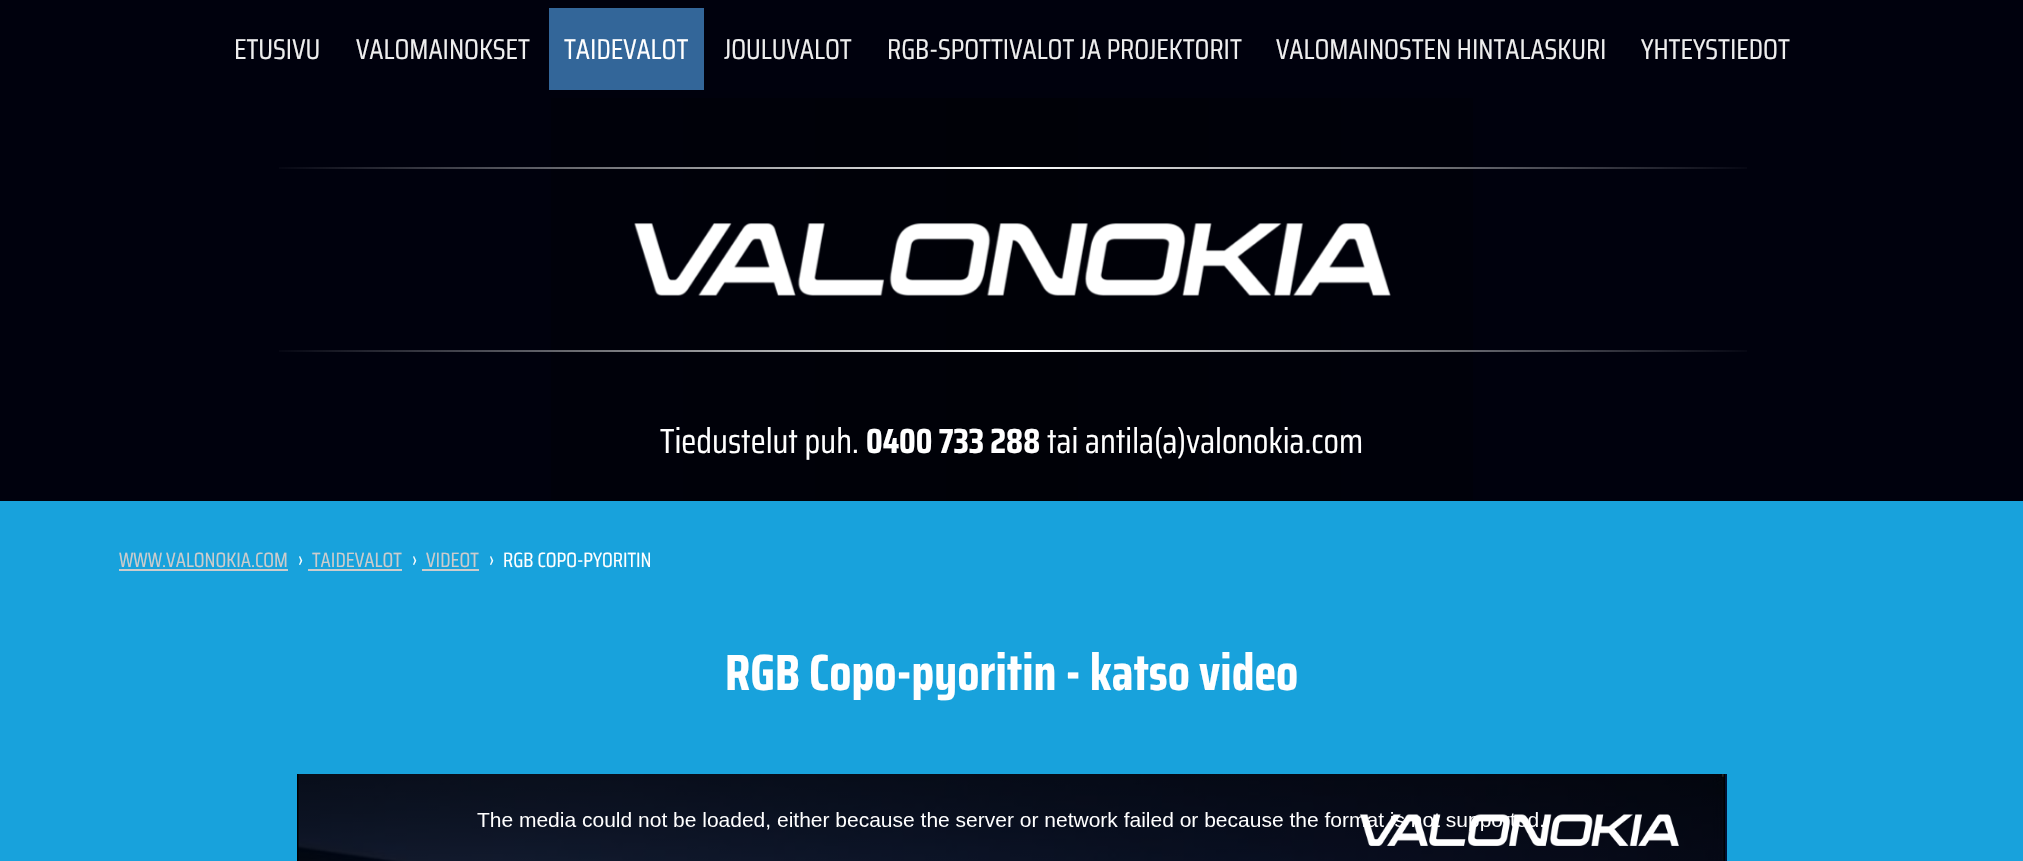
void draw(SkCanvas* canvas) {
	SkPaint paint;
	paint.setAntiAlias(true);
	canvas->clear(0xff18a2dc);
	paint.setColor(0xff00010d);
	canvas->drawRect(SkRect::MakeXYWH(0, 0, 2023, 501), paint);
	SkFont f1(fontMgr->matchFamilyStyle("Saira Condensed", SkFontStyle::Normal()), 28.75);
	f1.setSubpixel(true);
	paint.setColor(0xffeeeeee);
	canvas->drawString("ETUSIVU", 234, 59, f1, paint);
	canvas->drawString("VALOMAINOKSET", 356, 59, f1, paint);
	paint.setColor(0xff336699);
	canvas->drawRect(SkRect::MakeXYWH(549, 8, 155, 82), paint);
	paint.setColor(0xffffffff);
	canvas->drawString("TAIDEVALOT", 564, 59, f1, paint);
	paint.setColor(0xffeeeeee);
	canvas->drawString("JOULUVALOT", 724, 59, f1, paint);
	canvas->drawString("RGB-SPOTTIVALOT JA PROJEKTORIT", 887, 59, f1, paint);
	canvas->drawString("VALOMAINOSTEN HINTALASKURI", 1276, 59, f1, paint);
	canvas->drawString("YHTEYSTIEDOT", 1641, 59, f1, paint);
	{
		const SkColor colors[] = {0xff00010d, 0xff000107, 0xff00010d};
		const float stops[] = {0, 0.5, 1};
		const SkPoint ends[] = {{222, 299}, {1802, 299}};
		paint.setShader(SkGradientShader::MakeLinear(ends, colors, stops, 3, SkTileMode::kClamp));
		paint.setAlpha(255);
	}
	canvas->drawRect(SkRect::MakeXYWH(551, 98, 922, 403), paint);
	{
		const SkColor colors[] = {0x00ffffff, 0xffffffff, 0x00ffffff};
		const float stops[] = {0, 0.5, 1};
		const SkPoint ends[] = {{263, 167}, {1763, 167}};
		paint.setShader(SkGradientShader::MakeLinear(ends, colors, stops, 3, SkTileMode::kClamp));
		paint.setAlpha(255);
	}
	canvas->drawRect(SkRect::MakeXYWH(279, 167, 1468, 2), paint);
	canvas->drawImageRect(SkImages::DeferredFromEncodedData(SkData::MakeFromFileName("img1.png")), SkRect::MakeXYWH(634, 223, 757, 73), SkSamplingOptions());
	{
		const SkColor colors[] = {0x00ffffff, 0xffffffff, 0x00ffffff};
		const float stops[] = {0, 0.5, 1};
		const SkPoint ends[] = {{263, 350}, {1763, 350}};
		paint.setShader(SkGradientShader::MakeLinear(ends, colors, stops, 3, SkTileMode::kClamp));
		paint.setAlpha(255);
	}
	canvas->drawRect(SkRect::MakeXYWH(279, 350, 1468, 2), paint);
	SkFont f2(fontMgr->matchFamilyStyle("Saira Condensed", SkFontStyle::Normal()), 35);
	f2.setSubpixel(true);
	paint.setShader(nullptr);
	paint.setColor(0xffffffff);
	canvas->drawString("Tiedustelut puh.", 660, 453, f2, paint);
	SkFont f3(fontMgr->matchFamilyStyle("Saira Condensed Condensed", SkFontStyle::Bold()), 35);
	f3.setSubpixel(true);
	canvas->drawString("0400 733 288", 866, 453, f3, paint);
	canvas->drawString("tai antila(a)valonokia.com", 1047, 453, f2, paint);
	SkFont f4(fontMgr->matchFamilyStyle("Saira Condensed", SkFontStyle::Normal()), 20.75);
	f4.setSubpixel(true);
	paint.setColor(0xffcccccc);
	canvas->drawString("WWW.VALONOKIA.COM", 119, 567, f4, paint);
	canvas->drawRect(SkRect::MakeXYWH(119, 569, 169, 2), paint);
	paint.setColor(0xffffffff);
	canvas->drawString("›", 298, 567, f4, paint);
	paint.setColor(0xffcccccc);
	canvas->drawString("TAIDEVALOT", 312, 567, f4, paint);
	canvas->drawRect(SkRect::MakeXYWH(308, 569, 94, 2), paint);
	paint.setColor(0xffffffff);
	canvas->drawString("›", 412, 567, f4, paint);
	paint.setColor(0xffcccccc);
	canvas->drawString("VIDEOT", 426, 567, f4, paint);
	canvas->drawRect(SkRect::MakeXYWH(422, 569, 57, 2), paint);
	paint.setColor(0xffffffff);
	canvas->drawString("›", 489, 567, f4, paint);
	canvas->drawString("RGB COPO-PYORITIN", 503, 567, f4, paint);
	SkFont f5(fontMgr->matchFamilyStyle("Saira Condensed Condensed", SkFontStyle::Bold()), 51);
	f5.setSubpixel(true);
	canvas->drawString("RGB Copo-pyoritin - katso video", 725, 690, f5, paint);
	canvas->drawImageRect(SkImages::DeferredFromEncodedData(SkData::MakeFromFileName("img2.png")), SkRect::MakeXYWH(297, 774, 1428, 87), SkSamplingOptions());
	paint.setColor(0xff001133);
	canvas->drawRect(SkRect::MakeXYWH(1725, 774, 2, 87), paint);
	canvas->drawImageRect(SkImages::DeferredFromEncodedData(SkData::MakeFromFileName("img3.png")), SkRect::MakeXYWH(1360, 814, 319, 32), SkSamplingOptions());
}
